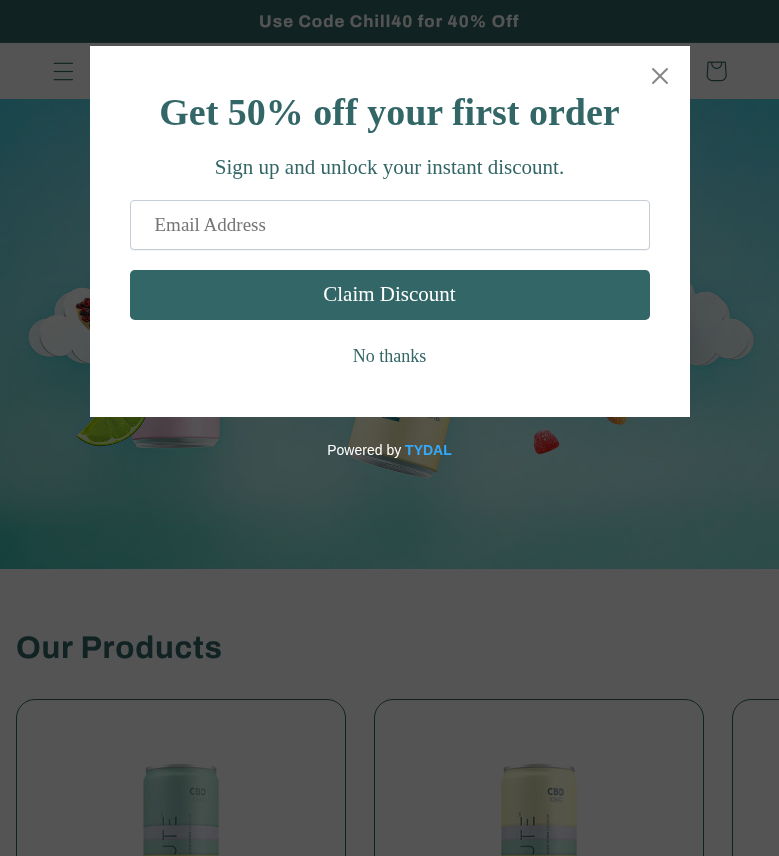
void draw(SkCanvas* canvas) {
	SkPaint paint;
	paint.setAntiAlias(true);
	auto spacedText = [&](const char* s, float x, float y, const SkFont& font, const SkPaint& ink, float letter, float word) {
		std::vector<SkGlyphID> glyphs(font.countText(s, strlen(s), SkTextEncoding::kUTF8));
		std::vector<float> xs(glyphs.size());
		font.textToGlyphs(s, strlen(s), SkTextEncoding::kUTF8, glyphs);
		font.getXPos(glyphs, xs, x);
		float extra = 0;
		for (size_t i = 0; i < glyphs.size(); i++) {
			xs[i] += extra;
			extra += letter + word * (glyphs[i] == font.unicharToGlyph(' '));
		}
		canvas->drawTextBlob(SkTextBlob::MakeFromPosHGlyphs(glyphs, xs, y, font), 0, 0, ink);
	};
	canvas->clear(0xffffffff);
	paint.setColor(0xff336666);
	canvas->drawRect(SkRect::MakeXYWH(0, 0, 779, 42), paint);
	paint.setColor(0xff437272);
	canvas->drawRect(SkRect::MakeXYWH(0, 42, 779, 1), paint);
	SkFont f1(fontMgr->matchFamilyStyle("Archivo", SkFontStyle::Bold()), 16.9);
	f1.setSubpixel(true);
	paint.setColor(0xffffffff);
	spacedText("Use Code Chill40 for 40% Off", 259, 27, f1, paint, 1.05, 0);
	canvas->drawImageRect(SkImages::DeferredFromEncodedData(SkData::MakeFromFileName("img2.png")), SkRect::MakeXYWH(53, 62, 20, 19), SkSamplingOptions());
	canvas->drawImageRect(SkImages::DeferredFromEncodedData(SkData::MakeFromFileName("img3.png")), SkRect::MakeXYWH(706, 61, 21, 21), SkSamplingOptions());
	canvas->drawImageRect(SkImages::DeferredFromEncodedData(SkData::MakeFromFileName("img4.png")), SkRect::MakeXYWH(0, 99, 779, 470), SkSamplingOptions());
	SkFont f2(fontMgr->matchFamilyStyle("Archivo", SkFontStyle::Bold()), 31.25);
	f2.setSubpixel(true);
	paint.setColor(0xff336666);
	spacedText("Our Products", 16, 658, f2, paint, 0.75, 0);
	paint.setStroke(true);
	paint.setStrokeWidth(1);
	canvas->drawRoundRect(SkRect::MakeXYWH(16.5, 699.5, 329, 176), 18.5, 18.5, paint);
	canvas->drawImageRect(SkImages::DeferredFromEncodedData(SkData::MakeFromFileName("img5.png")), SkRect::MakeXYWH(140, 763, 83, 93), SkSamplingOptions());
	canvas->drawRoundRect(SkRect::MakeXYWH(374.5, 699.5, 329, 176), 18.5, 18.5, paint);
	canvas->drawImageRect(SkImages::DeferredFromEncodedData(SkData::MakeFromFileName("img6.png")), SkRect::MakeXYWH(500, 763, 80, 93), SkSamplingOptions());
	canvas->drawRoundRect(SkRect::MakeXYWH(732.5, 699.5, 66, 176), 18.5, 18.5, paint);
	canvas->drawImageRect(SkImages::DeferredFromEncodedData(SkData::MakeFromFileName("img1.png")), SkRect::MakeXYWH(0, 0, 779, 856), SkSamplingOptions());
}
